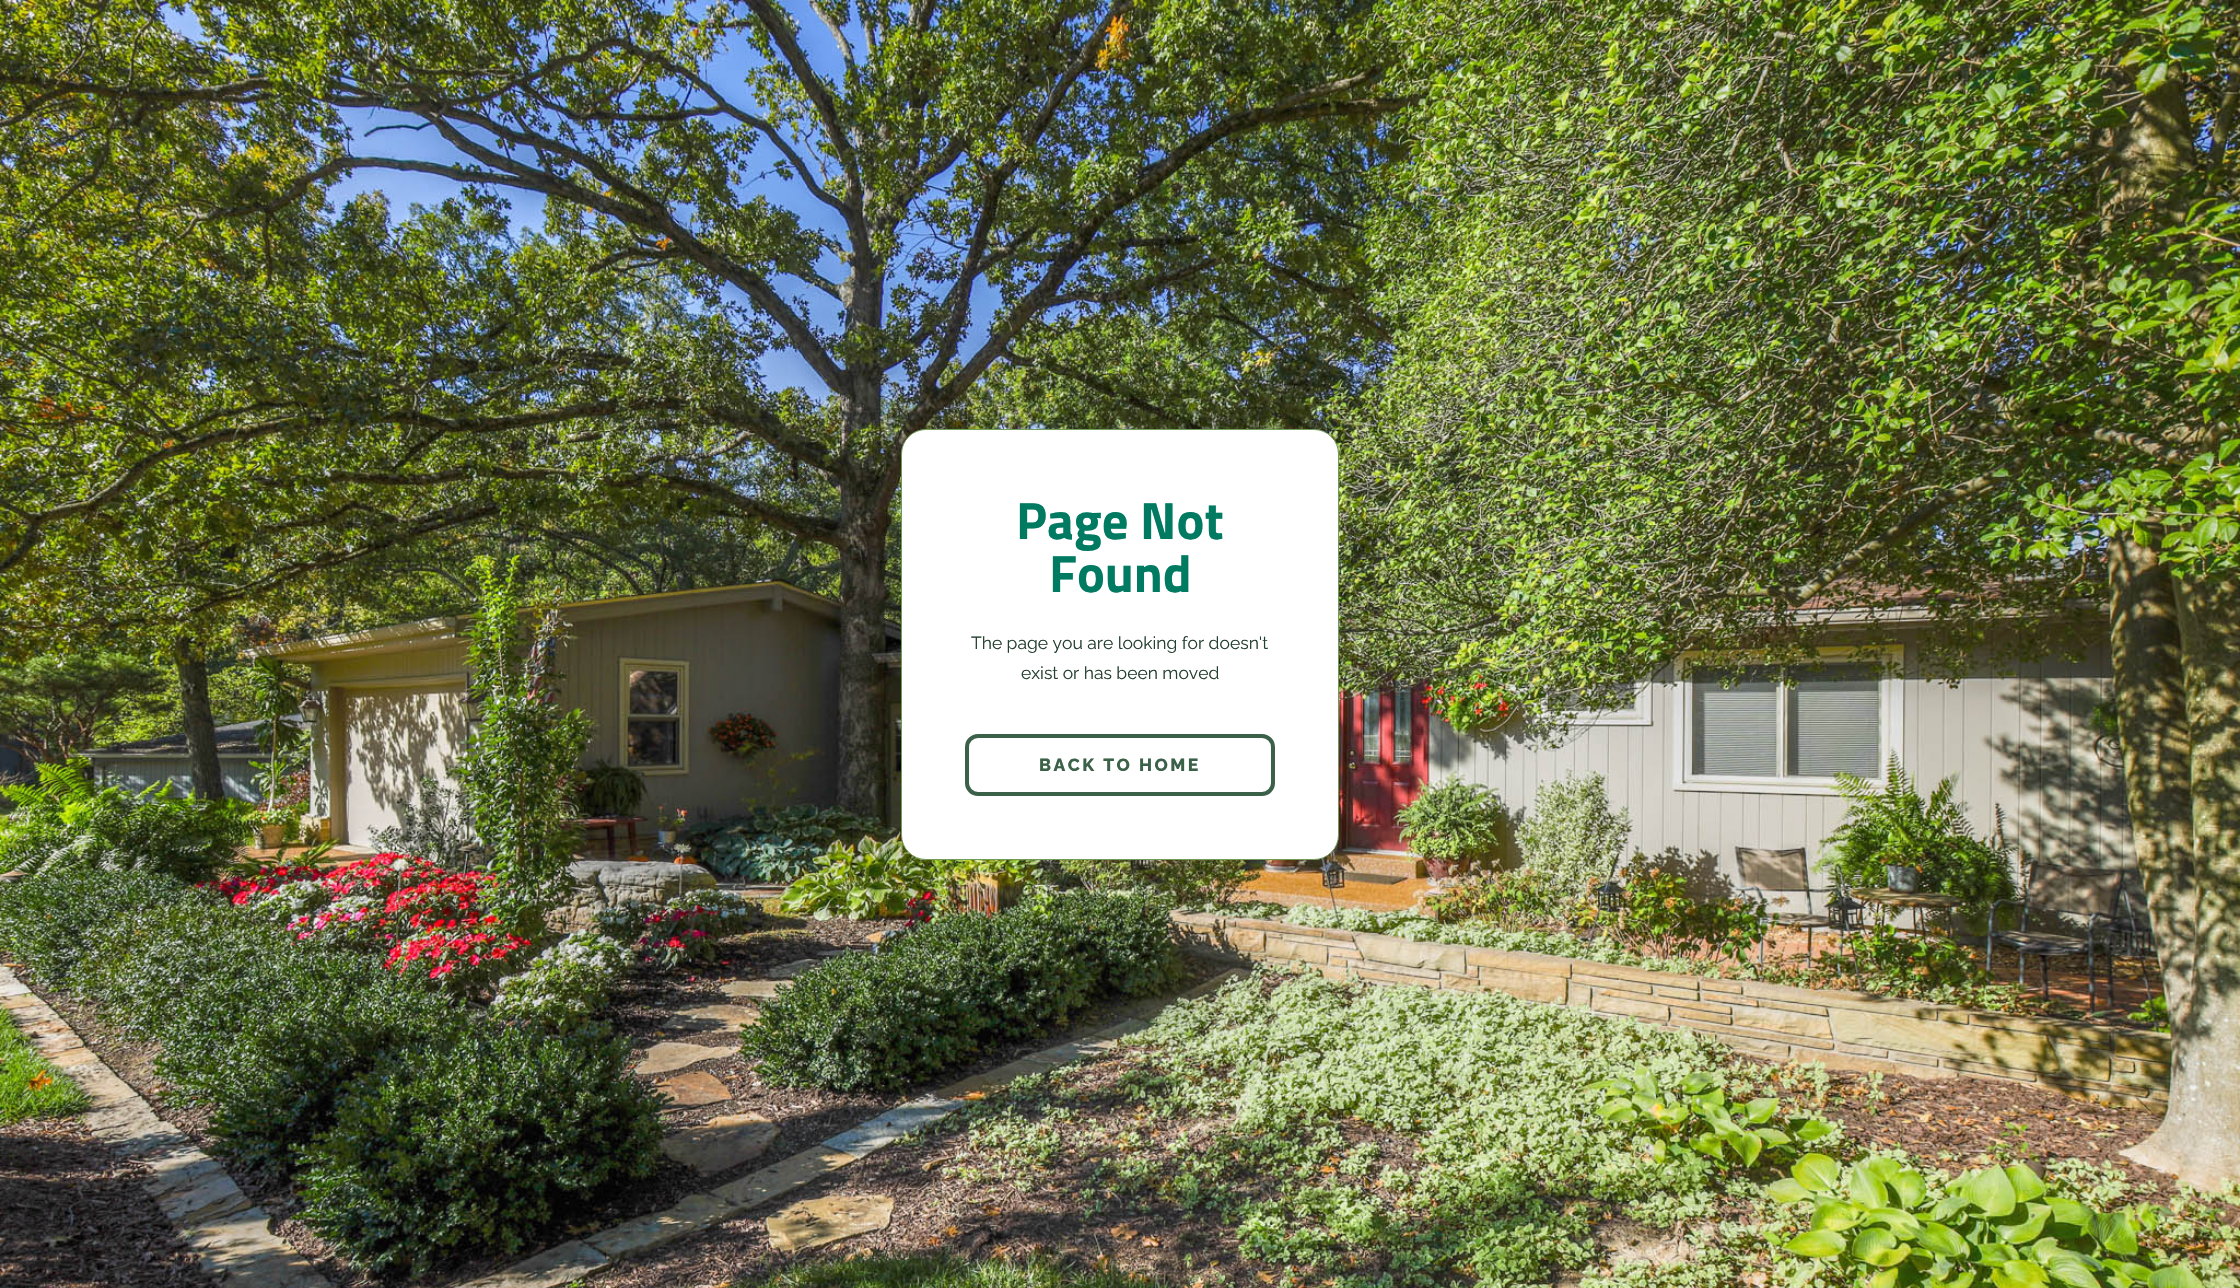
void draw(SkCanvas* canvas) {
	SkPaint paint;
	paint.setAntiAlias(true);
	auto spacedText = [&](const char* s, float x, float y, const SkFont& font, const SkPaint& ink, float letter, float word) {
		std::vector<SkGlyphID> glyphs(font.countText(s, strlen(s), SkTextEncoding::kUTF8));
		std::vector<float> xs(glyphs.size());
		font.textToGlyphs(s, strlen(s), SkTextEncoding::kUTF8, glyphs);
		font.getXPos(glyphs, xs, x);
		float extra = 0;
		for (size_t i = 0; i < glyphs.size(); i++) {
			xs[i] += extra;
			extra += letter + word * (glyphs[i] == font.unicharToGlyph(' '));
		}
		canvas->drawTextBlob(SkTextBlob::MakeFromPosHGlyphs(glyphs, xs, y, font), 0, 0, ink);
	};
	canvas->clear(0xffffffff);
	canvas->drawImageRect(SkImages::DeferredFromEncodedData(SkData::MakeFromFileName("img1.png")), SkRect::MakeXYWH(0, 0, 2240, 1288), SkSamplingOptions());
	paint.setColor(0xffffffff);
	canvas->drawRoundRect(SkRect::MakeXYWH(901.5, 429.5, 437, 430), 24.5, 24.5, paint);
	paint.setStroke(true);
	paint.setStrokeWidth(1);
	paint.setColor(0xff729b58);
	canvas->drawRoundRect(SkRect::MakeXYWH(901.5, 429.5, 437, 430), 24.5, 24.5, paint);
	SkFont f1(fontMgr->matchFamilyStyle("Titillium Web", SkFontStyle::Bold()), 52.5);
	f1.setSubpixel(true);
	paint.setStroke(false);
	paint.setColor(0xff017a62);
	canvas->drawString("Page Not", 1016, 539, f1, paint);
	canvas->drawString("Found", 1049, 592, f1, paint);
	SkFont f2(fontMgr->matchFamilyStyle("Raleway", SkFontStyle::Normal()), 17.5);
	f2.setSubpixel(true);
	paint.setColor(0xff244030);
	canvas->drawString("The page you are looking for doesn't", 971, 649, f2, paint);
	canvas->drawString("exist or has been moved", 1021, 679, f2, paint);
	paint.setStroke(true);
	paint.setStrokeWidth(4);
	paint.setColor(0xff3b6149);
	canvas->drawRoundRect(SkRect::MakeXYWH(967, 736, 306, 58), 11, 11, paint);
	SkFont f3(fontMgr->matchFamilyStyle("Raleway", SkFontStyle(800, SkFontStyle::kNormal_Width, SkFontStyle::kUpright_Slant)), 17.5);
	f3.setSubpixel(true);
	paint.setStroke(false);
	spacedText("BACK TO HOME", 1039, 771, f3, paint, 2.5, 0);
}
